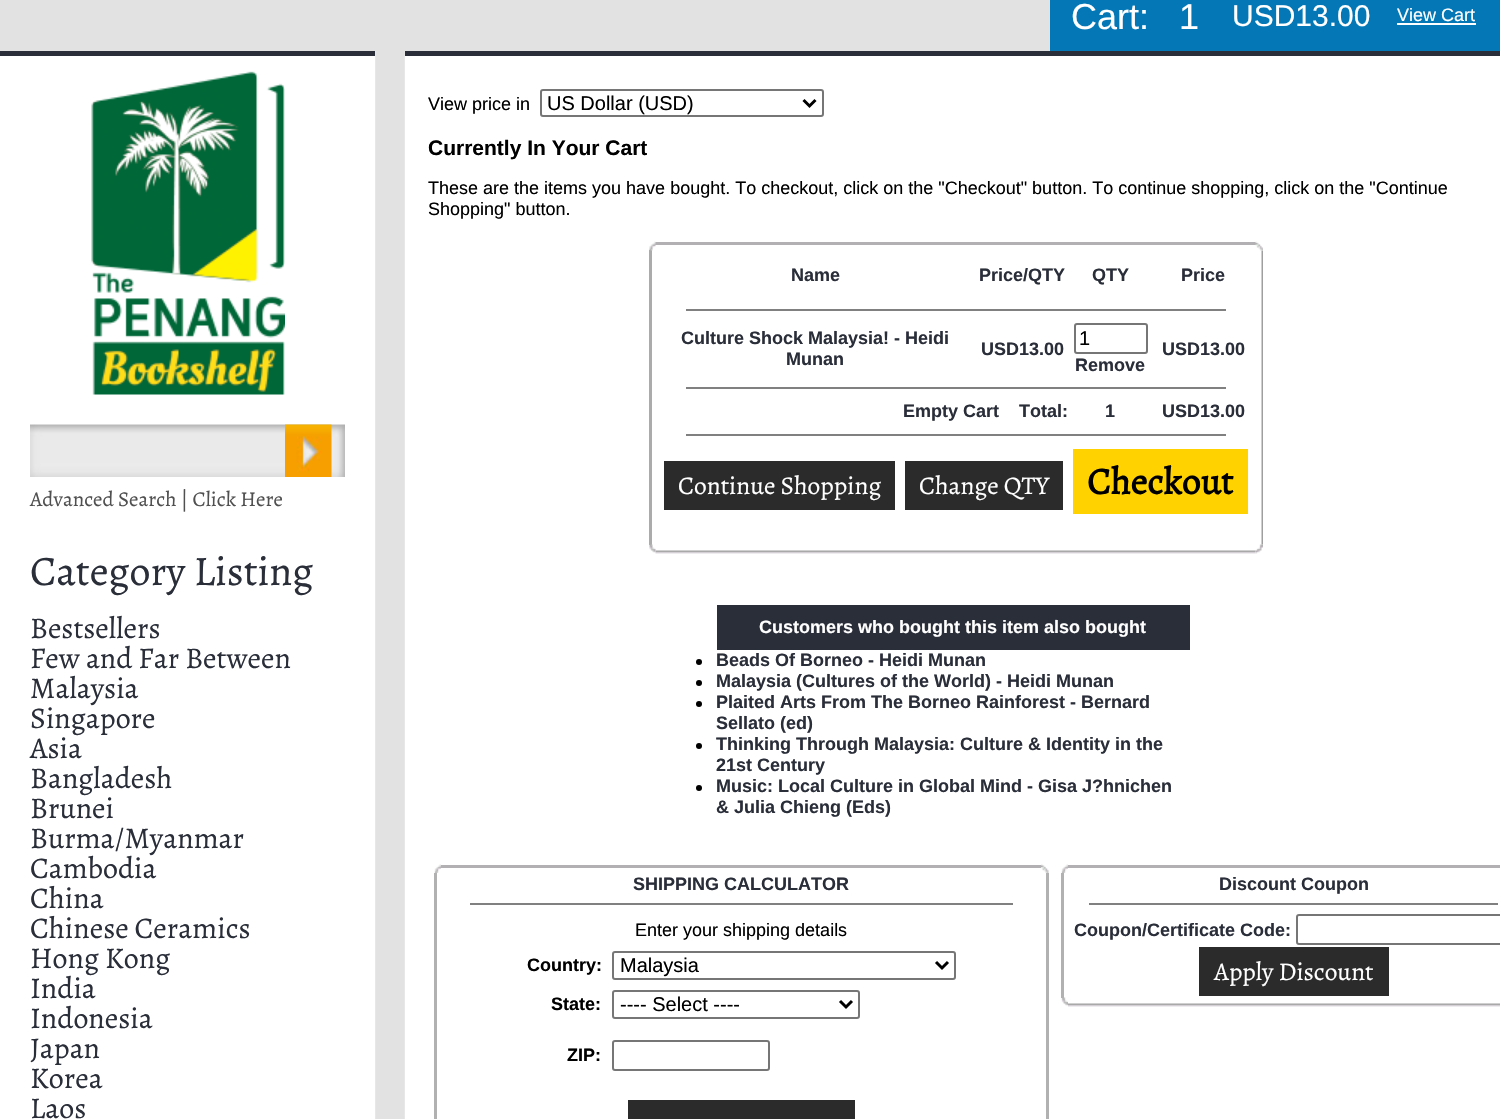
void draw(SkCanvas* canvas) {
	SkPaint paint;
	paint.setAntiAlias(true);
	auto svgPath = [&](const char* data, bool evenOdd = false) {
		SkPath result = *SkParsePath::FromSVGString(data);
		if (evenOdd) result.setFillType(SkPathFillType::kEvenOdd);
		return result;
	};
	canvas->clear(0xffe2e2e2);
	paint.setColor(0xff0478b6);
	canvas->drawRect(SkRect::MakeXYWH(1050, 0, 450, 51), paint);
	SkFont f1(fontMgr->matchFamilyStyle("Liberation Sans", SkFontStyle::Normal()), 36);
	f1.setSubpixel(true);
	paint.setColor(0xffffffff);
	canvas->drawString("Cart:", 1071, 29, f1, paint);
	canvas->drawString("1", 1179, 29, f1, paint);
	SkFont f2(fontMgr->matchFamilyStyle("Liberation Sans", SkFontStyle::Normal()), 30);
	f2.setSubpixel(true);
	canvas->drawString("USD13.00", 1232, 26, f2, paint);
	SkFont f3(fontMgr->matchFamilyStyle("Liberation Sans", SkFontStyle::Normal()), 18);
	f3.setSubpixel(true);
	canvas->drawString("View Cart", 1397, 21, f3, paint);
	canvas->drawRect(SkRect::MakeXYWH(1397, 23, 79, 2), paint);
	canvas->drawImageRect(SkImages::DeferredFromEncodedData(SkData::MakeFromFileName("img1.png")), SkRect::MakeXYWH(375, 51, 30, 1068), SkSamplingOptions());
	canvas->drawRect(SkRect::MakeXYWH(0, 56, 375, 1063), paint);
	paint.setColor(0xff2a2e39);
	canvas->drawRect(SkRect::MakeXYWH(0, 51, 375, 5), paint);
	canvas->drawImageRect(SkImages::DeferredFromEncodedData(SkData::MakeFromFileName("img2.png")), SkRect::MakeXYWH(91, 71, 194, 324), SkSamplingOptions());
	canvas->drawImageRect(SkImages::DeferredFromEncodedData(SkData::MakeFromFileName("img3.png")), SkRect::MakeXYWH(30, 424, 315, 53), SkSamplingOptions());
	canvas->drawImageRect(SkImages::DeferredFromEncodedData(SkData::MakeFromFileName("img4.png")), SkRect::MakeXYWH(285, 424, 47, 53), SkSamplingOptions());
	SkFont f4(fontMgr->matchFamilyStyle("Alegreya", SkFontStyle::Normal()), 21);
	f4.setSubpixel(true);
	paint.setColor(0xff505050);
	canvas->drawString("Advanced Search | Click Here", 30, 506, f4, paint);
	SkFont f5(fontMgr->matchFamilyStyle("Alegreya", SkFontStyle::Normal()), 42);
	f5.setSubpixel(true);
	paint.setColor(0xff2a2e39);
	canvas->drawString("Category Listing", 30, 585, f5, paint);
	SkFont f6(fontMgr->matchFamilyStyle("Alegreya", SkFontStyle::Normal()), 30);
	f6.setSubpixel(true);
	canvas->drawString("Bestsellers", 30, 638, f6, paint);
	canvas->drawString("Few and Far Between", 30, 668, f6, paint);
	canvas->drawString("Malaysia", 30, 698, f6, paint);
	canvas->drawString("Singapore", 30, 728, f6, paint);
	canvas->drawString("Asia", 30, 758, f6, paint);
	canvas->drawString("Bangladesh", 30, 788, f6, paint);
	canvas->drawString("Brunei", 30, 818, f6, paint);
	canvas->drawString("Burma/Myanmar", 30, 848, f6, paint);
	canvas->drawString("Cambodia", 30, 878, f6, paint);
	canvas->drawString("China", 30, 908, f6, paint);
	canvas->drawString("Chinese Ceramics", 30, 938, f6, paint);
	canvas->drawString("Hong Kong", 30, 968, f6, paint);
	canvas->drawString("India", 30, 998, f6, paint);
	canvas->drawString("Indonesia", 30, 1028, f6, paint);
	canvas->drawString("Japan", 30, 1058, f6, paint);
	canvas->drawString("Korea", 30, 1088, f6, paint);
	canvas->drawString("Laos", 30, 1118, f6, paint);
	paint.setColor(0xffffffff);
	canvas->drawRect(SkRect::MakeXYWH(405, 56, 1095, 1063), paint);
	paint.setColor(0xff2a2e39);
	canvas->drawRect(SkRect::MakeXYWH(405, 51, 1095, 5), paint);
	paint.setColor(0xff000000);
	canvas->drawString("View price in", 428, 110, f3, paint);
	paint.setStroke(true);
	paint.setStrokeWidth(2);
	paint.setColor(0xff767676);
	canvas->drawRoundRect(SkRect::MakeXYWH(541, 90, 282, 26), 2, 2, paint);
	paint.setStrokeWidth(3);
	paint.setColor(0xff000000);
	canvas->drawPath(svgPath("M803.5 100L809.5 106L815.5 100"), paint);
	SkFont f7(fontMgr->matchFamilyStyle("Liberation Sans", SkFontStyle::Normal()), 20);
	f7.setSubpixel(true);
	paint.setStroke(false);
	canvas->drawString("US Dollar (USD)", 547, 110, f7, paint);
	SkFont f8(fontMgr->matchFamilyStyle("Liberation Sans", SkFontStyle::Bold()), 21);
	f8.setSubpixel(true);
	canvas->drawString("Currently In Your Cart", 428, 155, f8, paint);
	canvas->drawString("These are the items you have bought. To checkout, click on the \"Checkout\" button. To continue shopping, click on the \"Continue", 428, 194, f3, paint);
	canvas->drawString("Shopping\" button.", 428, 215, f3, paint);
	paint.setColor(0xffb3b0b3);
	canvas->drawRect(SkRect::MakeXYWH(655, 242, 601, 3), paint);
	paint.setColor(0xffababab);
	canvas->drawRect(SkRect::MakeXYWH(649, 250, 3, 295), paint);
	canvas->drawImageRect(SkImages::DeferredFromEncodedData(SkData::MakeFromFileName("img5.png")), SkRect::MakeXYWH(649, 241, 7, 10), SkSamplingOptions());
	canvas->drawImageRect(SkImages::DeferredFromEncodedData(SkData::MakeFromFileName("img7.png")), SkRect::MakeXYWH(1261, 250, 2, 295), SkSamplingOptions());
	canvas->drawImageRect(SkImages::DeferredFromEncodedData(SkData::MakeFromFileName("img6.png")), SkRect::MakeXYWH(1255, 241, 8, 10), SkSamplingOptions());
	SkFont f9(fontMgr->matchFamilyStyle("Liberation Sans", SkFontStyle::Bold()), 18);
	f9.setSubpixel(true);
	paint.setColor(0xff2a2e39);
	canvas->drawString("Name", 791, 281, f9, paint);
	canvas->drawString("Price/QTY", 979, 281, f9, paint);
	canvas->drawString("QTY", 1092, 281, f9, paint);
	canvas->drawString("Price", 1181, 281, f9, paint);
	paint.setColor(0xff808080);
	canvas->drawRect(SkRect::MakeXYWH(686, 309, 540, 2), paint);
	paint.setColor(0xff2a2e39);
	canvas->drawString("Culture Shock Malaysia! - Heidi", 681, 344, f9, paint);
	canvas->drawString("Munan", 786, 365, f9, paint);
	canvas->drawString("USD13.00", 981, 355, f9, paint);
	paint.setStroke(true);
	paint.setStrokeWidth(2);
	paint.setColor(0xff767676);
	canvas->drawRoundRect(SkRect::MakeXYWH(1075, 324, 72, 29), 2, 2, paint);
	paint.setStroke(false);
	paint.setColor(0xff000000);
	canvas->drawString("1", 1079, 345, f7, paint);
	paint.setColor(0xff2a2e39);
	canvas->drawString("Remove", 1075, 371, f9, paint);
	canvas->drawString("USD13.00", 1162, 355, f9, paint);
	paint.setColor(0xff808080);
	canvas->drawRect(SkRect::MakeXYWH(686, 387, 540, 2), paint);
	paint.setColor(0xff2a2e39);
	canvas->drawString("Empty Cart", 903, 417, f9, paint);
	canvas->drawString("Total:", 1019, 417, f9, paint);
	canvas->drawString("1", 1105, 417, f9, paint);
	canvas->drawString("USD13.00", 1162, 417, f9, paint);
	paint.setColor(0xff808080);
	canvas->drawRect(SkRect::MakeXYWH(686, 434, 540, 2), paint);
	paint.setColor(0xff2b2b2b);
	canvas->drawRect(SkRect::MakeXYWH(664, 461, 231, 49), paint);
	SkFont f10(fontMgr->matchFamilyStyle("Alegreya", SkFontStyle::Normal()), 25.5);
	f10.setSubpixel(true);
	paint.setColor(0xffffffff);
	canvas->drawString("Continue Shopping", 678, 494, f10, paint);
	paint.setColor(0xff2b2b2b);
	canvas->drawRect(SkRect::MakeXYWH(905, 461, 158, 49), paint);
	paint.setColor(0xffffffff);
	canvas->drawString("Change QTY", 919, 494, f10, paint);
	paint.setColor(0xffffd200);
	canvas->drawRect(SkRect::MakeXYWH(1073, 449, 175, 65), paint);
	SkFont f11(fontMgr->matchFamilyStyle("Alegreya", SkFontStyle::Bold()), 37.5);
	f11.setSubpixel(true);
	paint.setColor(0xff000000);
	canvas->drawString("Checkout", 1087, 494, f11, paint);
	canvas->drawImageRect(SkImages::DeferredFromEncodedData(SkData::MakeFromFileName("img9.png")), SkRect::MakeXYWH(655, 550, 601, 4), SkSamplingOptions());
	canvas->drawImageRect(SkImages::DeferredFromEncodedData(SkData::MakeFromFileName("img8.png")), SkRect::MakeXYWH(649, 544, 7, 9), SkSamplingOptions());
	canvas->drawImageRect(SkImages::DeferredFromEncodedData(SkData::MakeFromFileName("img10.png")), SkRect::MakeXYWH(1255, 544, 8, 10), SkSamplingOptions());
	paint.setColor(0xff2a2e39);
	canvas->drawRect(SkRect::MakeXYWH(717, 605, 473, 45), paint);
	paint.setColor(0xffffffff);
	canvas->drawString("Customers who bought this item also bought", 759, 633, f9, paint);
	paint.setColor(0xff000000);
	canvas->drawCircle(699, 662, 3, paint);
	paint.setColor(0xff2a2e39);
	canvas->drawString("Beads Of Borneo - Heidi Munan", 716, 666, f9, paint);
	paint.setColor(0xff000000);
	canvas->drawCircle(699, 683, 3, paint);
	paint.setColor(0xff2a2e39);
	canvas->drawString("Malaysia (Cultures of the World) - Heidi Munan", 716, 687, f9, paint);
	paint.setColor(0xff000000);
	canvas->drawCircle(699, 704, 3, paint);
	paint.setColor(0xff2a2e39);
	canvas->drawString("Plaited Arts From The Borneo Rainforest - Bernard", 716, 708, f9, paint);
	canvas->drawString("Sellato (ed)", 716, 729, f9, paint);
	paint.setColor(0xff000000);
	canvas->drawCircle(699, 746, 3, paint);
	paint.setColor(0xff2a2e39);
	canvas->drawString("Thinking Through Malaysia: Culture & Identity in the", 716, 750, f9, paint);
	canvas->drawString("21st Century", 716, 771, f9, paint);
	paint.setColor(0xff000000);
	canvas->drawCircle(699, 788, 3, paint);
	paint.setColor(0xff2a2e39);
	canvas->drawString("Music: Local Culture in Global Mind - Gisa J?hnichen", 716, 792, f9, paint);
	canvas->drawString("& Julia Chieng (Eds)", 716, 813, f9, paint);
	canvas->drawImageRect(SkImages::DeferredFromEncodedData(SkData::MakeFromFileName("img11.png")), SkRect::MakeXYWH(434, 864, 7, 9), SkSamplingOptions());
	paint.setColor(0xffb3b0b3);
	canvas->drawRect(SkRect::MakeXYWH(441, 865, 600, 3), paint);
	canvas->drawImageRect(SkImages::DeferredFromEncodedData(SkData::MakeFromFileName("img12.png")), SkRect::MakeXYWH(1041, 864, 8, 9), SkSamplingOptions());
	paint.setColor(0xffb1b1b1);
	canvas->drawRect(SkRect::MakeXYWH(434, 873, 3, 246), paint);
	paint.setColor(0xff2a2e39);
	canvas->drawString("SHIPPING CALCULATOR", 633, 890, f9, paint);
	paint.setColor(0xff808080);
	canvas->drawRect(SkRect::MakeXYWH(470, 903, 543, 2), paint);
	paint.setColor(0xff000000);
	canvas->drawString("Enter your shipping details", 635, 936, f3, paint);
	canvas->drawString("Country:", 527, 971, f9, paint);
	paint.setStroke(true);
	paint.setColor(0xff767676);
	canvas->drawRoundRect(SkRect::MakeXYWH(613, 952, 342, 27), 2, 2, paint);
	paint.setStrokeWidth(3);
	paint.setColor(0xff000000);
	canvas->drawPath(svgPath("M936 962L942 968L948 962"), paint);
	paint.setStroke(false);
	canvas->drawString("Malaysia", 620, 972, f7, paint);
	canvas->drawString("State:", 551, 1010, f9, paint);
	paint.setStroke(true);
	paint.setStrokeWidth(2);
	paint.setColor(0xff767676);
	canvas->drawRoundRect(SkRect::MakeXYWH(613, 991, 246, 27), 2, 2, paint);
	paint.setStrokeWidth(3);
	paint.setColor(0xff000000);
	canvas->drawPath(svgPath("M840 1001L846 1007L852 1001"), paint);
	paint.setStroke(false);
	canvas->drawString("---- Select ----", 620, 1011, f7, paint);
	canvas->drawString("ZIP:", 567, 1061, f9, paint);
	paint.setStroke(true);
	paint.setStrokeWidth(2);
	paint.setColor(0xff767676);
	canvas->drawRoundRect(SkRect::MakeXYWH(613, 1041, 156, 29), 2, 2, paint);
	paint.setStroke(false);
	paint.setColor(0xff2b2b2b);
	canvas->drawRect(SkRect::MakeXYWH(628, 1100, 227, 19), paint);
	paint.setColor(0xffb1b1b1);
	canvas->drawRect(SkRect::MakeXYWH(1046, 873, 3, 246), paint);
	canvas->drawImageRect(SkImages::DeferredFromEncodedData(SkData::MakeFromFileName("img11.png")), SkRect::MakeXYWH(1061, 864, 7, 9), SkSamplingOptions());
	paint.setColor(0xffb3b0b3);
	canvas->drawRect(SkRect::MakeXYWH(1068, 865, 432, 3), paint);
	paint.setColor(0xffb1b1b1);
	canvas->drawRect(SkRect::MakeXYWH(1061, 873, 3, 125), paint);
	paint.setColor(0xff2a2e39);
	canvas->drawString("Discount Coupon", 1219, 890, f9, paint);
	paint.setColor(0xff808080);
	canvas->drawRect(SkRect::MakeXYWH(1089, 903, 409, 2), paint);
	paint.setColor(0xff2a2e39);
	canvas->drawString("Coupon/Certificate Code:", 1074, 936, f9, paint);
	paint.setStroke(true);
	paint.setColor(0xff767676);
	canvas->drawRoundRect(SkRect::MakeXYWH(1297, 915, 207, 29), 2, 2, paint);
	paint.setStroke(false);
	paint.setColor(0xff2b2b2b);
	canvas->drawRect(SkRect::MakeXYWH(1199, 947, 190, 49), paint);
	paint.setColor(0xffffffff);
	canvas->drawString("Apply Discount", 1214, 980, f10, paint);
	canvas->drawImageRect(SkImages::DeferredFromEncodedData(SkData::MakeFromFileName("img13.png")), SkRect::MakeXYWH(1061, 997, 7, 9), SkSamplingOptions());
	canvas->drawImageRect(SkImages::DeferredFromEncodedData(SkData::MakeFromFileName("img14.png")), SkRect::MakeXYWH(1068, 1003, 432, 4), SkSamplingOptions());
}
